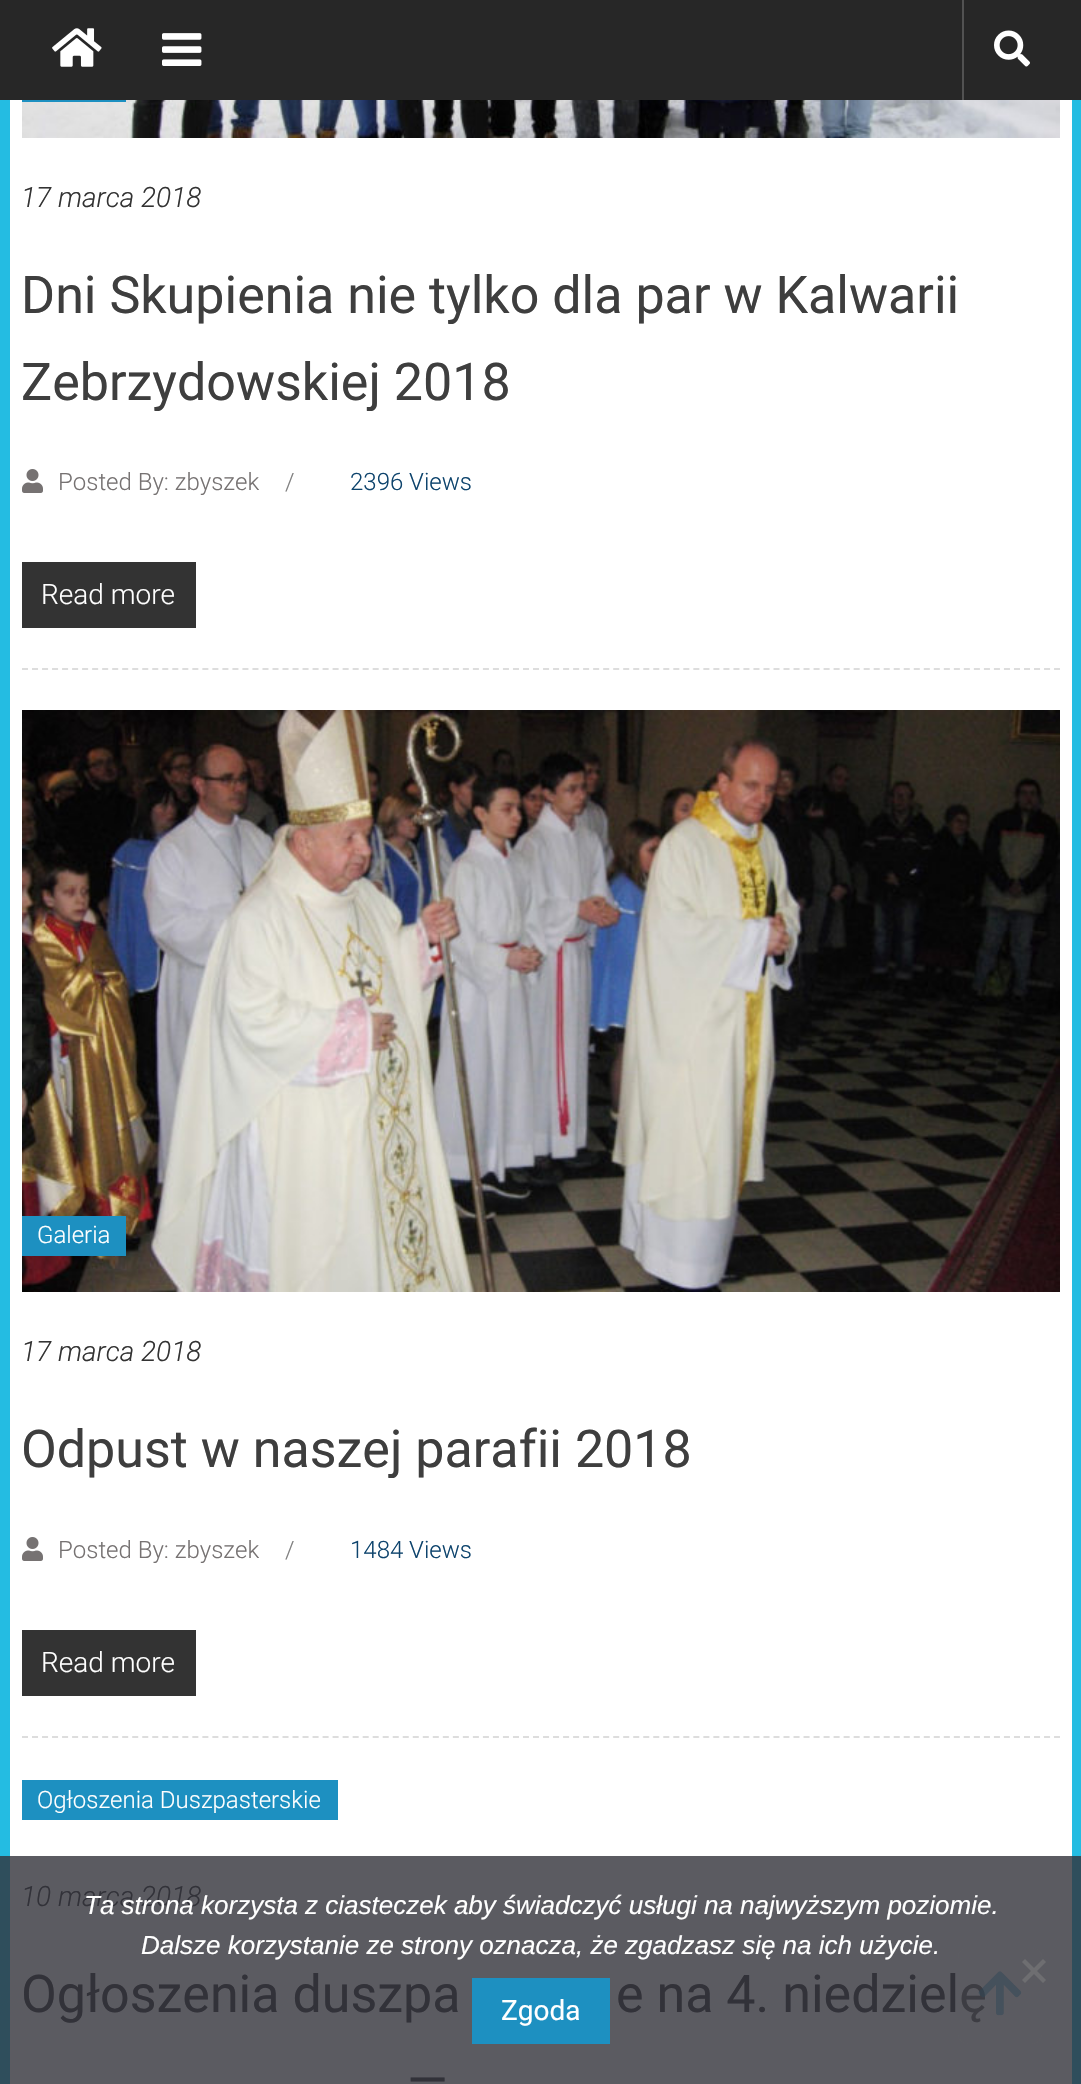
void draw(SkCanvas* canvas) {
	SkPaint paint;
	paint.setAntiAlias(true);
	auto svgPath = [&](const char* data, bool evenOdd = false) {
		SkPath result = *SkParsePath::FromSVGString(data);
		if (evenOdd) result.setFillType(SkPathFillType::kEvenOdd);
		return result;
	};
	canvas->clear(0xff24bce2);
	paint.setColor(0xff2f4e5c);
	canvas->drawRect(SkRect::MakeXYWH(0, 1856, 1081, 228), paint);
	paint.setColor(0xffffffff);
	canvas->drawRect(SkRect::MakeXYWH(10, 100, 1062, 1756), paint);
	paint.setColor(0xff5b5b61);
	canvas->drawRect(SkRect::MakeXYWH(10, 1856, 1062, 228), paint);
	paint.setColor(0xff272727);
	canvas->drawRect(SkRect::MakeXYWH(0, 0, 1081, 100), paint);
	canvas->drawImageRect(SkImages::DeferredFromEncodedData(SkData::MakeFromFileName("img1.png")), SkRect::MakeXYWH(52, 28, 50, 39), SkSamplingOptions());
	canvas->drawImageRect(SkImages::DeferredFromEncodedData(SkData::MakeFromFileName("img2.png")), SkRect::MakeXYWH(162, 33, 40, 33), SkSamplingOptions());
	paint.setColor(0xff525252);
	canvas->drawRect(SkRect::MakeXYWH(962, 0, 2, 100), paint);
	canvas->drawImageRect(SkImages::DeferredFromEncodedData(SkData::MakeFromFileName("img3.png")), SkRect::MakeXYWH(994, 30, 36, 37), SkSamplingOptions());
	paint.setStroke(true);
	paint.setStrokeWidth(2);
	paint.setColor(0xffdddddd);
	paint.setPathEffect(SkDashPathEffect::Make({{6, 4.02f}}, 0));
	canvas->drawPath(svgPath("M22 669H1060"), paint);
	paint.setPathEffect(nullptr);
	canvas->drawImageRect(SkImages::DeferredFromEncodedData(SkData::MakeFromFileName("img4.png")), SkRect::MakeXYWH(22, 100, 1038, 38), SkSamplingOptions());
	paint.setStroke(false);
	paint.setColor(0xff1d90c1);
	canvas->drawRect(SkRect::MakeXYWH(22, 100, 104, 2), paint);
	SkFont f1(fontMgr->matchFamilyStyle("Roboto", SkFontStyle(300, SkFontStyle::kNormal_Width, SkFontStyle::kItalic_Slant)), 28);
	f1.setSubpixel(true);
	paint.setColor(0xff333333);
	canvas->drawString("17 marca 2018", 21, 207, f1, paint);
	SkFont f2(fontMgr->matchFamilyStyle("Roboto", SkFontStyle::Normal()), 52);
	f2.setSubpixel(true);
	paint.setColor(0xff3e3e3e);
	canvas->drawString("Dni Skupienia nie tylko dla par w Kalwarii", 21, 313, f2, paint);
	canvas->drawString("Zebrzydowskiej 2018", 21, 400, f2, paint);
	canvas->drawImageRect(SkImages::DeferredFromEncodedData(SkData::MakeFromFileName("img5.png")), SkRect::MakeXYWH(22, 469, 21, 24), SkSamplingOptions());
	SkFont f3(fontMgr->matchFamilyStyle("Roboto", SkFontStyle(300, SkFontStyle::kNormal_Width, SkFontStyle::kUpright_Slant)), 24);
	f3.setSubpixel(true);
	paint.setColor(0xff767272);
	canvas->drawString("Posted By: zbyszek", 58, 490, f3, paint);
	paint.setColor(0xff808080);
	canvas->drawString("/", 285, 490, f3, paint);
	paint.setColor(0xff0e446d);
	canvas->drawString("2396 Views", 350, 490, f3, paint);
	paint.setColor(0xff333333);
	canvas->drawRect(SkRect::MakeXYWH(22, 562, 174, 66), paint);
	SkFont f4(fontMgr->matchFamilyStyle("Roboto", SkFontStyle(300, SkFontStyle::kNormal_Width, SkFontStyle::kUpright_Slant)), 28);
	f4.setSubpixel(true);
	paint.setColor(0xffffffff);
	canvas->drawString("Read more", 41, 604, f4, paint);
	paint.setStroke(true);
	paint.setColor(0xffdddddd);
	paint.setPathEffect(SkDashPathEffect::Make({{6, 4.02f}}, 0));
	canvas->drawPath(svgPath("M22 1737H1060"), paint);
	paint.setPathEffect(nullptr);
	canvas->drawImageRect(SkImages::DeferredFromEncodedData(SkData::MakeFromFileName("img6.png")), SkRect::MakeXYWH(22, 710, 1038, 582), SkSamplingOptions());
	paint.setStroke(false);
	paint.setColor(0xff1d90c1);
	canvas->drawRect(SkRect::MakeXYWH(22, 1216, 104, 40), paint);
	paint.setColor(0xffffffff);
	canvas->drawString("Galeria", 37, 1243, f3, paint);
	paint.setColor(0xff333333);
	canvas->drawString("17 marca 2018", 21, 1361, f1, paint);
	paint.setColor(0xff3e3e3e);
	canvas->drawString("Odpust w naszej parafii 2018", 21, 1467, f2, paint);
	canvas->drawImageRect(SkImages::DeferredFromEncodedData(SkData::MakeFromFileName("img5.png")), SkRect::MakeXYWH(22, 1537, 21, 24), SkSamplingOptions());
	paint.setColor(0xff767272);
	canvas->drawString("Posted By: zbyszek", 58, 1558, f3, paint);
	paint.setColor(0xff808080);
	canvas->drawString("/", 285, 1558, f3, paint);
	paint.setColor(0xff0e446d);
	canvas->drawString("1484 Views", 350, 1558, f3, paint);
	paint.setColor(0xff333333);
	canvas->drawRect(SkRect::MakeXYWH(22, 1630, 174, 66), paint);
	paint.setColor(0xffffffff);
	canvas->drawString("Read more", 41, 1672, f4, paint);
	paint.setColor(0xff1d90c1);
	canvas->drawRect(SkRect::MakeXYWH(22, 1780, 316, 40), paint);
	paint.setColor(0xffffffff);
	canvas->drawString("Ogłoszenia Duszpasterskie", 37, 1808, f3, paint);
	paint.setColor(0xff323239);
	canvas->drawString("10 marca 2018", 21, 1906, f1, paint);
	canvas->drawString("Ogłoszenia duszpa", 21, 2012, f2, paint);
	canvas->drawString("e na 4. niedzielę", 616, 2012, f2, paint);
	canvas->drawString("—", 407, 2098, f2, paint);
	paint.setColor(0x405b5b61);
	canvas->drawRoundRect(SkRect::MakeXYWH(958, 1948, 84, 96), 10, 10, paint);
	canvas->drawImageRect(SkImages::DeferredFromEncodedData(SkData::MakeFromFileName("img7.png")), SkRect::MakeXYWH(978, 1971, 44, 45), SkSamplingOptions());
	SkFont f5(fontMgr->matchFamilyStyle("Liberation Sans", SkFontStyle::Italic()), 26);
	f5.setSubpixel(true);
	paint.setColor(0xffffffff);
	canvas->drawString("Ta strona korzysta z ciasteczek aby świadczyć usługi na najwyższym poziomie.", 84, 1914, f5, paint);
	canvas->drawString("Dalsze korzystanie ze strony oznacza, że zgadzasz się na ich użycie.", 141, 1954, f5, paint);
	paint.setColor(0xff6e6e71);
	canvas->drawPath(svgPath("M1043 1959L1046 1962L1025 1983L1022 1980Z"), paint);
	canvas->drawPath(svgPath("M1022 1962L1025 1959L1046 1980L1043 1983Z"), paint);
	paint.setColor(0xff1d90c1);
	canvas->drawRect(SkRect::MakeXYWH(472, 1978, 138, 66), paint);
	SkFont f6(fontMgr->matchFamilyStyle("Roboto", SkFontStyle::Normal()), 28);
	f6.setSubpixel(true);
	paint.setColor(0xffffffff);
	canvas->drawString("Zgoda", 501, 2020, f6, paint);
}
